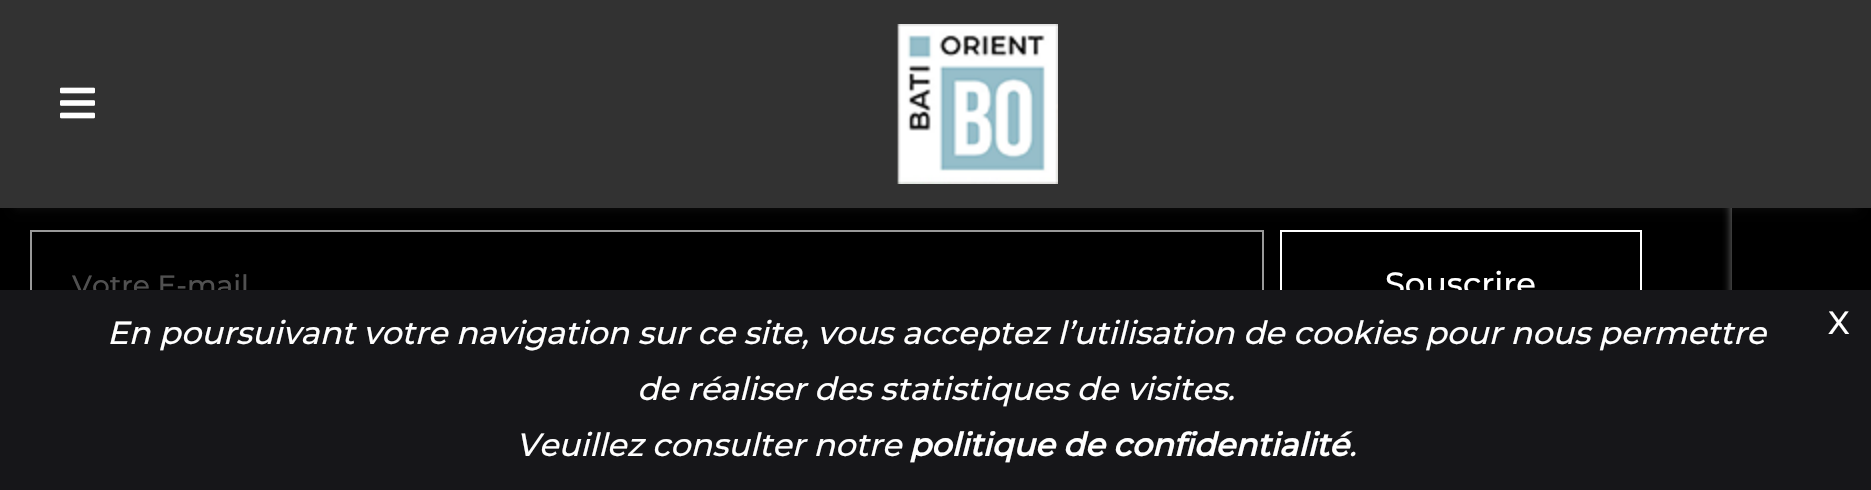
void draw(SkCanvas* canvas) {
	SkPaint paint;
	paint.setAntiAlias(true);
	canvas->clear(0xff000000);
	paint.setColor(0x1a737373);
	paint.setMaskFilter(SkMaskFilter::MakeBlur(kNormal_SkBlurStyle, 4));
	canvas->drawRect(SkRect::MakeXYWH(14, 30, 1844, 180), paint);
	paint.setMaskFilter(nullptr);
	canvas->save();
	canvas->clipRect(SkRect::MakeXYWH(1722, 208, 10, 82));
	paint.setColor(0xff808080);
	paint.setMaskFilter(SkMaskFilter::MakeBlur(kNormal_SkBlurStyle, 5));
	canvas->drawRoundRect(SkRect::MakeXYWH(1732, 198, 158, 120), 4, 4, paint);
	paint.setMaskFilter(nullptr);
	canvas->restore();
	paint.setColor(0xff323232);
	canvas->drawRect(SkRect::MakeXYWH(0, 0, 1871, 208), paint);
	canvas->drawImageRect(SkImages::DeferredFromEncodedData(SkData::MakeFromFileName("img1.png")), SkRect::MakeXYWH(60, 87, 35, 32), SkSamplingOptions());
	canvas->drawImageRect(SkImages::DeferredFromEncodedData(SkData::MakeFromFileName("img2.png")), SkRect::MakeXYWH(897, 24, 161, 160), SkSamplingOptions());
	paint.setStroke(true);
	paint.setStrokeWidth(2);
	paint.setColor(0xff999999);
	canvas->drawRect(SkRect::MakeXYWH(31, 231, 1232, 108), paint);
	SkFont f1(fontMgr->matchFamilyStyle("Montserrat", SkFontStyle(100, SkFontStyle::kNormal_Width, SkFontStyle::kUpright_Slant)), 28);
	f1.setSubpixel(true);
	paint.setStroke(false);
	paint.setColor(0xff505050);
	canvas->drawString("Votre E-mail", 72, 295, f1, paint);
	paint.setStroke(true);
	paint.setColor(0xffffffff);
	canvas->drawRect(SkRect::MakeXYWH(1281, 231, 360, 108), paint);
	SkFont f2(fontMgr->matchFamilyStyle("Montserrat", SkFontStyle(100, SkFontStyle::kNormal_Width, SkFontStyle::kUpright_Slant)), 32);
	f2.setSubpixel(true);
	paint.setStroke(false);
	canvas->drawString("Souscrire", 1385, 295, f2, paint);
	paint.setColor(0xff161619);
	canvas->drawRect(SkRect::MakeXYWH(0, 290, 1871, 200), paint);
	SkFont f3(fontMgr->matchFamilyStyle("Montserrat", SkFontStyle(100, SkFontStyle::kNormal_Width, SkFontStyle::kItalic_Slant)), 32);
	f3.setSubpixel(true);
	paint.setColor(0xffffffff);
	canvas->drawString("En poursuivant votre navigation sur ce site, vous acceptez l’utilisation de cookies pour nous permettre", 107, 344, f3, paint);
	canvas->drawString("de réaliser des statistiques de visites.", 637, 400, f3, paint);
	canvas->drawString("Veuillez consulter notre", 516, 456, f3, paint);
	SkFont f4(fontMgr->matchFamilyStyle("Montserrat", SkFontStyle::BoldItalic()), 32);
	f4.setSubpixel(true);
	canvas->drawString("politique de confidentialité", 909, 456, f4, paint);
	canvas->drawString(".", 1349, 456, f3, paint);
	canvas->drawString("X", 1828, 334, f2, paint);
}
